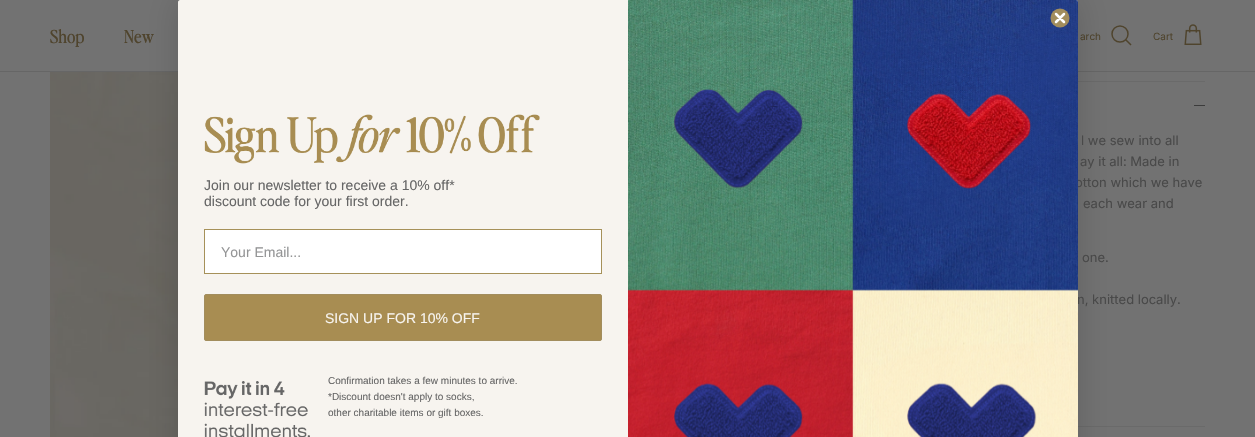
void draw(SkCanvas* canvas) {
	SkPaint paint;
	paint.setAntiAlias(true);
	auto svgPath = [&](const char* data, bool evenOdd = false) {
		SkPath result = *SkParsePath::FromSVGString(data);
		if (evenOdd) result.setFillType(SkPathFillType::kEvenOdd);
		return result;
	};
	canvas->clear(0xff727272);
	paint.setColor(0xff666666);
	canvas->drawRect(SkRect::MakeXYWH(0, 71, 1255, 1), paint);
	SkFont f1(fontMgr->matchFamilyStyle("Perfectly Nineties", SkFontStyle::Normal()), 18);
	f1.setSubpixel(true);
	paint.setColor(0xff4f442d);
	canvas->drawString("Shop", 50, 43, f1, paint);
	canvas->drawString("New", 124, 43, f1, paint);
	SkFont f2(fontMgr->matchFamilyStyle("Inter", SkFontStyle::Normal()), 10);
	f2.setSubpixel(true);
	canvas->drawString("arch", 1080, 40, f2, paint);
	paint.setStroke(true);
	paint.setStrokeWidth(1.5);
	canvas->drawCircle(1120, 34, 8, paint);
	paint.setStrokeCap(SkPaint::kSquare_Cap);
	canvas->drawPath(svgPath("M1126 40L1130.5 44.5"), paint);
	paint.setStroke(false);
	canvas->drawString("Cart", 1153, 40, f2, paint);
	canvas->drawImageRect(SkImages::DeferredFromEncodedData(SkData::MakeFromFileName("img1.png")), SkRect::MakeXYWH(1184, 24, 18, 21), SkSamplingOptions());
	canvas->drawImageRect(SkImages::DeferredFromEncodedData(SkData::MakeFromFileName("img5.png")), SkRect::MakeXYWH(50, 72, 128, 365), SkSamplingOptions());
	paint.setColor(0xff6a6a6a);
	canvas->drawRect(SkRect::MakeXYWH(1078, 81, 127, 1), paint);
	canvas->drawRect(SkRect::MakeXYWH(1078, 426, 127, 1), paint);
	paint.setColor(0x26000000);
	paint.setMaskFilter(SkMaskFilter::MakeBlur(kNormal_SkBlurStyle, 15));
	canvas->drawRect(SkRect::MakeXYWH(178, 0, 900, 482), paint);
	paint.setMaskFilter(nullptr);
	SkFont f3(fontMgr->matchFamilyStyle("Inter", SkFontStyle::Normal()), 13);
	f3.setSubpixel(true);
	paint.setColor(0xff494949);
	canvas->drawString("otton which we have", 1075, 187, f3, paint);
	canvas->drawString("n, knitted locally.", 1077, 304, f3, paint);
	paint.setColor(0xfff7f4ef);
	canvas->drawPath(svgPath("M180 0H1076C1077 0 1078 1 1078 2V437H178V2C178 1 179 0 180 0Z"), paint);
	canvas->drawImageRect(SkImages::DeferredFromEncodedData(SkData::MakeFromFileName("img4.png")), SkRect::MakeXYWH(628, 0, 450, 437), SkSamplingOptions());
	paint.setColor(0xffa28d5d);
	canvas->drawCircle(1060, 18, 9.5, paint);
	paint.setStroke(true);
	paint.setStrokeWidth(2.5);
	paint.setStrokeCap(SkPaint::kRound_Cap);
	paint.setStrokeJoin(SkPaint::kRound_Join);
	paint.setColor(0xffffffff);
	canvas->drawPath(svgPath("M1056 14L1064 22M1056 22L1064 14Z"), paint);
	canvas->drawImageRect(SkImages::DeferredFromEncodedData(SkData::MakeFromFileName("img2.png")), SkRect::MakeXYWH(204, 114, 336, 50), SkSamplingOptions());
	SkFont f4(fontMgr->matchFamilyStyle("Liberation Sans", SkFontStyle::Normal()), 14);
	f4.setSubpixel(true);
	paint.setStroke(false);
	paint.setColor(0xff666666);
	canvas->drawString("Join our newsletter to receive a 10% off*", 204, 190, f4, paint);
	canvas->drawString("discount code for your first order.", 204, 206, f4, paint);
	paint.setColor(0xffffffff);
	canvas->drawRect(SkRect::MakeXYWH(204.5, 229.5, 397, 44), paint);
	paint.setStroke(true);
	paint.setStrokeWidth(1);
	paint.setStrokeCap(SkPaint::kButt_Cap);
	paint.setStrokeJoin(SkPaint::kMiter_Join);
	paint.setColor(0xffa69159);
	canvas->drawRect(SkRect::MakeXYWH(204.5, 229.5, 397, 44), paint);
	paint.setStroke(false);
	paint.setColor(0xff949596);
	canvas->drawString("Your Email...", 221, 257, f4, paint);
	paint.setColor(0xffa88d52);
	canvas->drawRoundRect(SkRect::MakeXYWH(204.5, 294.5, 397, 46), 1.5, 1.5, paint);
	paint.setStroke(true);
	paint.setColor(0xffa28d5d);
	canvas->drawRoundRect(SkRect::MakeXYWH(204.5, 294.5, 397, 46), 1.5, 1.5, paint);
	paint.setStroke(false);
	paint.setColor(0xfff7f4ef);
	canvas->drawString("SIGN UP FOR 10% OFF", 325, 323, f4, paint);
	canvas->drawImageRect(SkImages::DeferredFromEncodedData(SkData::MakeFromFileName("img3.png")), SkRect::MakeXYWH(204, 381, 106, 56), SkSamplingOptions());
	SkFont f5(fontMgr->matchFamilyStyle("Liberation Sans", SkFontStyle::Normal()), 10);
	f5.setSubpixel(true);
	paint.setColor(0xff666666);
	canvas->drawString("Confirmation takes a few minutes to arrive.", 328, 384, f5, paint);
	canvas->drawString("*Discount doesn't apply to socks,", 328, 400, f5, paint);
	canvas->drawString("other charitable items or gift boxes.", 328, 416, f5, paint);
	paint.setColor(0xff3c3c3c);
	canvas->drawRect(SkRect::MakeXYWH(1194, 105, 11, 1), paint);
	paint.setColor(0xff494949);
	canvas->drawString("l we sew into all", 1081, 145, f3, paint);
	canvas->drawString("ay it all: Made in", 1080, 166, f3, paint);
	canvas->drawString("each wear and", 1083, 208, f3, paint);
	canvas->drawString("one.", 1082, 262, f3, paint);
}
